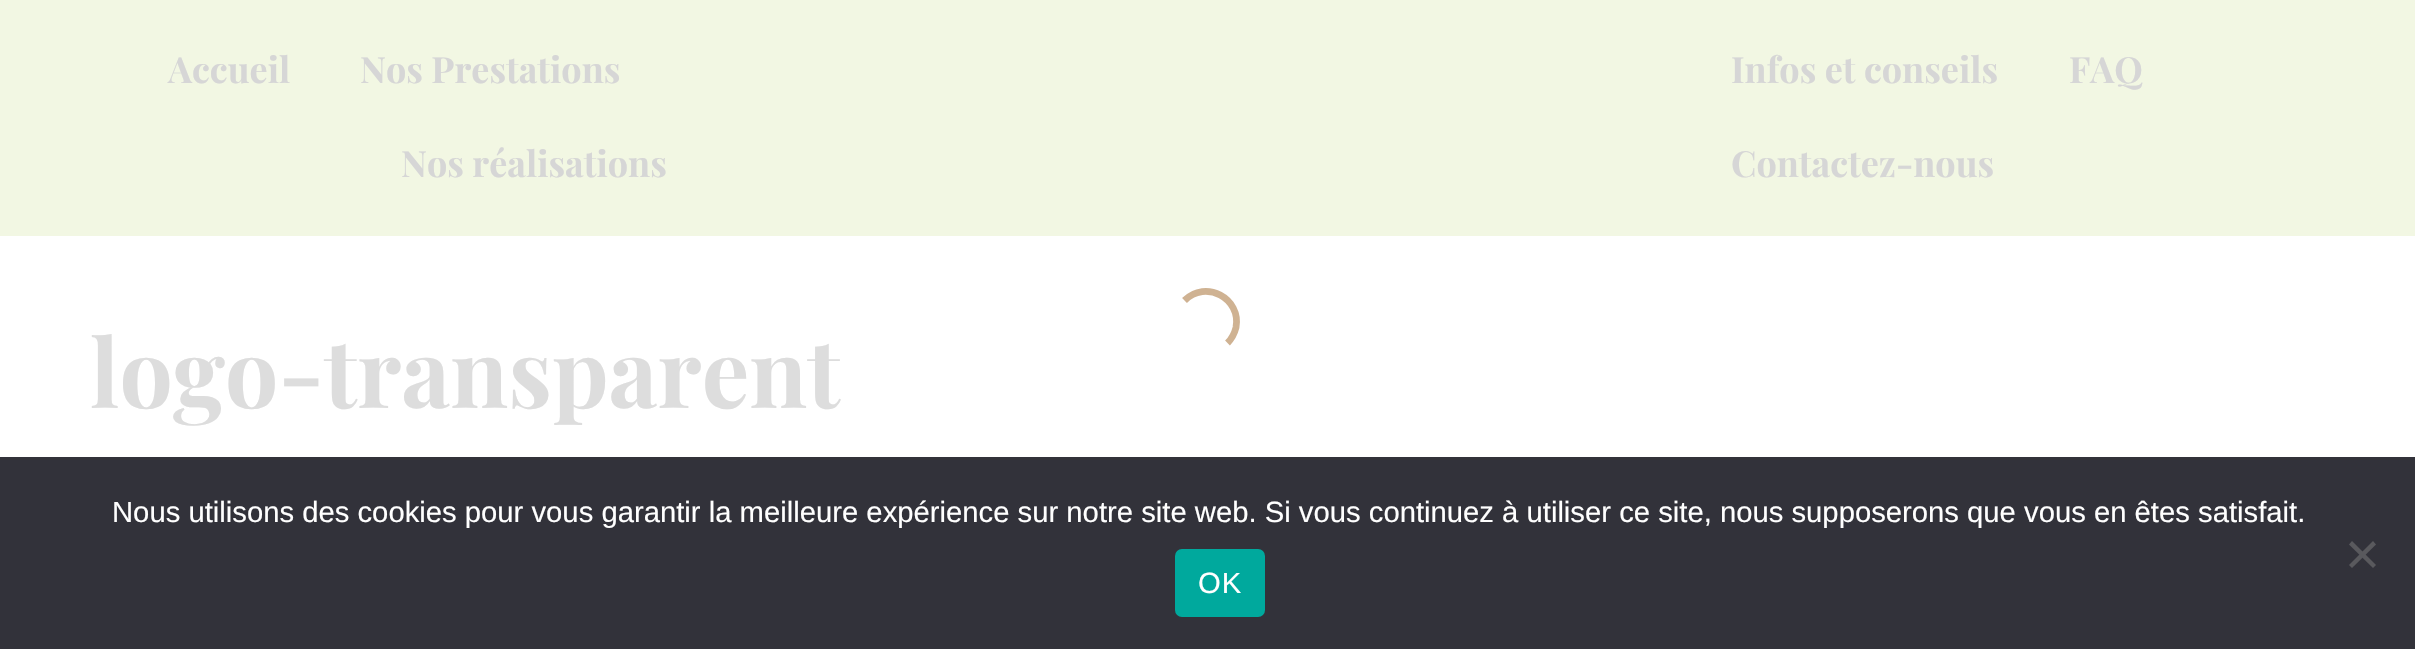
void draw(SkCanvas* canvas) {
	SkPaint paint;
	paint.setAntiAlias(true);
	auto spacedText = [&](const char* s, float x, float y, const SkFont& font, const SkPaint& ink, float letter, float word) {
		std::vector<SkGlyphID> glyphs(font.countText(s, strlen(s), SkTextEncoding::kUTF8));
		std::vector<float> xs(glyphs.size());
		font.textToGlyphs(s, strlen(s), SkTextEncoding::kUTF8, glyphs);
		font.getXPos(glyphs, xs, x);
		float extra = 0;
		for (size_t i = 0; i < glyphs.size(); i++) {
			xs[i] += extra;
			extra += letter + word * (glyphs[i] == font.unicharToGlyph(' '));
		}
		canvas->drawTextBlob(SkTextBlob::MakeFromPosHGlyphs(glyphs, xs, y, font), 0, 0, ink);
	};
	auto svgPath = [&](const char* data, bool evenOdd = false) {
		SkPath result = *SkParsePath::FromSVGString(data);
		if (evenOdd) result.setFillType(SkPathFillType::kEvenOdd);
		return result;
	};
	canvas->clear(0xffffffff);
	paint.setColor(0xfff2f7e3);
	canvas->drawRect(SkRect::MakeXYWH(0, 0, 2415, 236), paint);
	SkFont f1(fontMgr->matchFamilyStyle("Playfair Display", SkFontStyle::Bold()), 36);
	f1.setSubpixel(true);
	paint.setColor(0xffd6d6d6);
	canvas->drawString("Accueil", 168, 83, f1, paint);
	canvas->drawString("Nos Prestations", 360, 83, f1, paint);
	canvas->drawString("Nos réalisations", 401, 177, f1, paint);
	canvas->drawString("Infos et conseils", 1731, 83, f1, paint);
	canvas->drawString("FAQ", 2069, 83, f1, paint);
	canvas->drawString("Contactez-nous", 1731, 177, f1, paint);
	SkFont f2(fontMgr->matchFamilyStyle("Playfair Display", SkFontStyle::Bold()), 94.5);
	f2.setSubpixel(true);
	paint.setColor(0xffdddddd);
	canvas->drawString("logo-transparent", 90, 408, f2, paint);
	paint.setStroke(true);
	paint.setStrokeWidth(6.8);
	paint.setColor(0xffcfb292);
	canvas->drawPath(svgPath("M1184.5 300.5C1205.5 279 1241.5 298.5 1236 327.5C1234.5 333.5 1231.5 339 1227.5 343"), paint);
	paint.setStroke(false);
	paint.setColor(0xff32323a);
	canvas->drawRect(SkRect::MakeXYWH(0, 457, 2415, 192), paint);
	SkFont f3(fontMgr->matchFamilyStyle("Liberation Sans", SkFontStyle::Normal()), 29.25);
	f3.setSubpixel(true);
	paint.setColor(0xffffffff);
	canvas->drawString("Nous utilisons des cookies pour vous garantir la meilleure expérience sur notre site web. Si vous continuez à utiliser ce site, nous supposerons que vous en êtes satisfait.", 112, 522, f3, paint);
	paint.setColor(0xff59595d);
	canvas->drawPath(svgPath("M2373 541L2376 544.5L2352 568L2349 565Z"), paint);
	canvas->drawPath(svgPath("M2349 544.5L2352 541L2376 565L2373 568Z"), paint);
	paint.setColor(0xff00a99d);
	canvas->drawRoundRect(SkRect::MakeXYWH(1175, 549, 90, 68), 7, 7, paint);
	paint.setColor(0xffffffff);
	spacedText("OK", 1198, 593, f3, paint, 1, 0);
}
